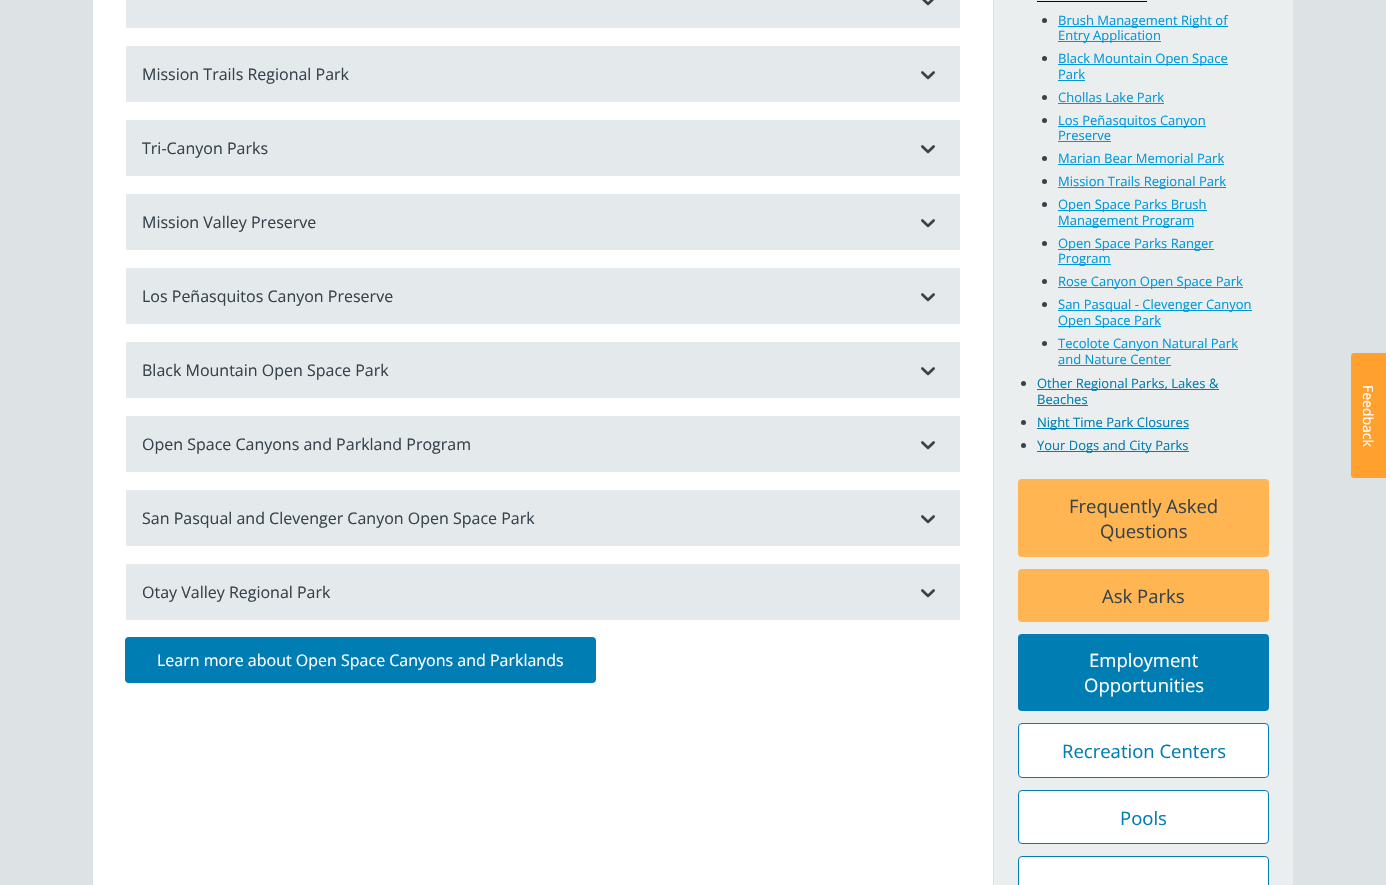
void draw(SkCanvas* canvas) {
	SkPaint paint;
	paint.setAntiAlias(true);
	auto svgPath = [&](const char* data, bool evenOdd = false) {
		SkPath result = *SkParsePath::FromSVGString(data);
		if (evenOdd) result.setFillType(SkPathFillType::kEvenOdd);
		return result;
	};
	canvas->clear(0xffdde2e5);
	paint.setColor(0xffffffff);
	canvas->drawRect(SkRect::MakeXYWH(93, 0, 900, 885), paint);
	paint.setColor(0xffe4e9eb);
	canvas->drawRect(SkRect::MakeXYWH(126, 0, 834, 28), paint);
	canvas->drawImageRect(SkImages::DeferredFromEncodedData(SkData::MakeFromFileName("img1.png")), SkRect::MakeXYWH(922, 0, 12, 6), SkSamplingOptions());
	canvas->drawRect(SkRect::MakeXYWH(126, 46, 834, 56), paint);
	SkFont f1(fontMgr->matchFamilyStyle("Open Sans", SkFontStyle::Normal()), 16);
	f1.setSubpixel(true);
	paint.setColor(0xff37424a);
	canvas->drawString("Mission Trails Regional Park", 142, 80, f1, paint);
	canvas->drawImageRect(SkImages::DeferredFromEncodedData(SkData::MakeFromFileName("img2.png")), SkRect::MakeXYWH(921, 71, 14, 9), SkSamplingOptions());
	paint.setColor(0xffe4e9eb);
	canvas->drawRect(SkRect::MakeXYWH(126, 120, 834, 56), paint);
	paint.setColor(0xff37424a);
	canvas->drawString("Tri-Canyon Parks", 142, 154, f1, paint);
	canvas->drawImageRect(SkImages::DeferredFromEncodedData(SkData::MakeFromFileName("img2.png")), SkRect::MakeXYWH(921, 145, 14, 9), SkSamplingOptions());
	paint.setColor(0xffe4e9eb);
	canvas->drawRect(SkRect::MakeXYWH(126, 194, 834, 56), paint);
	paint.setColor(0xff37424a);
	canvas->drawString("Mission Valley Preserve", 142, 228, f1, paint);
	canvas->drawImageRect(SkImages::DeferredFromEncodedData(SkData::MakeFromFileName("img2.png")), SkRect::MakeXYWH(921, 219, 14, 9), SkSamplingOptions());
	paint.setColor(0xffe4e9eb);
	canvas->drawRect(SkRect::MakeXYWH(126, 268, 834, 56), paint);
	paint.setColor(0xff37424a);
	canvas->drawString("Los Peñasquitos Canyon Preserve", 142, 302, f1, paint);
	canvas->drawImageRect(SkImages::DeferredFromEncodedData(SkData::MakeFromFileName("img2.png")), SkRect::MakeXYWH(921, 293, 14, 9), SkSamplingOptions());
	paint.setColor(0xffe4e9eb);
	canvas->drawRect(SkRect::MakeXYWH(126, 342, 834, 56), paint);
	paint.setColor(0xff37424a);
	canvas->drawString("Black Mountain Open Space Park", 142, 376, f1, paint);
	canvas->drawImageRect(SkImages::DeferredFromEncodedData(SkData::MakeFromFileName("img2.png")), SkRect::MakeXYWH(921, 367, 14, 9), SkSamplingOptions());
	paint.setColor(0xffe4e9eb);
	canvas->drawRect(SkRect::MakeXYWH(126, 416, 834, 56), paint);
	paint.setColor(0xff37424a);
	canvas->drawString("Open Space Canyons and Parkland Program", 142, 450, f1, paint);
	canvas->drawImageRect(SkImages::DeferredFromEncodedData(SkData::MakeFromFileName("img2.png")), SkRect::MakeXYWH(921, 441, 14, 9), SkSamplingOptions());
	paint.setColor(0xffe4e9eb);
	canvas->drawRect(SkRect::MakeXYWH(126, 490, 834, 56), paint);
	paint.setColor(0xff37424a);
	canvas->drawString("San Pasqual and Clevenger Canyon Open Space Park", 142, 524, f1, paint);
	canvas->drawImageRect(SkImages::DeferredFromEncodedData(SkData::MakeFromFileName("img2.png")), SkRect::MakeXYWH(921, 515, 14, 9), SkSamplingOptions());
	paint.setColor(0xffe4e9eb);
	canvas->drawRect(SkRect::MakeXYWH(126, 564, 834, 56), paint);
	paint.setColor(0xff37424a);
	canvas->drawString("Otay Valley Regional Park", 142, 598, f1, paint);
	canvas->drawImageRect(SkImages::DeferredFromEncodedData(SkData::MakeFromFileName("img2.png")), SkRect::MakeXYWH(921, 589, 14, 9), SkSamplingOptions());
	paint.setColor(0xff007db3);
	canvas->drawRoundRect(SkRect::MakeXYWH(125, 637, 471, 46), 4, 4, paint);
	paint.setColor(0xffffffff);
	canvas->drawString("Learn more about Open Space Canyons and Parklands", 157, 666, f1, paint);
	paint.setColor(0xffeaeeef);
	canvas->drawRect(SkRect::MakeXYWH(994, 0, 299, 885), paint);
	paint.setColor(0xff0a0a0a);
	canvas->drawRect(SkRect::MakeXYWH(1037, 1, 110, 1), paint);
	paint.setColor(0xff37424a);
	canvas->drawCircle(1044.5, 20.5, 2.5, paint);
	paint.setColor(0xff0098db);
	canvas->drawRect(SkRect::MakeXYWH(1058, 26, 170, 1), paint);
	SkFont f2(fontMgr->matchFamilyStyle("Open Sans", SkFontStyle::Normal()), 13);
	f2.setSubpixel(true);
	canvas->drawString("Brush Management Right of", 1058, 25, f2, paint);
	canvas->drawRect(SkRect::MakeXYWH(1058, 41, 103, 1), paint);
	canvas->drawString("Entry Application", 1058, 40, f2, paint);
	paint.setColor(0xff37424a);
	canvas->drawCircle(1044.5, 58.5, 2.5, paint);
	paint.setColor(0xff0098db);
	canvas->drawRect(SkRect::MakeXYWH(1058, 64, 170, 1), paint);
	canvas->drawString("Black Mountain Open Space", 1058, 63, f2, paint);
	canvas->drawString("Park", 1058, 79, f2, paint);
	canvas->drawRect(SkRect::MakeXYWH(1058, 80, 27, 1), paint);
	paint.setColor(0xff37424a);
	canvas->drawCircle(1044.5, 97.5, 2.5, paint);
	paint.setColor(0xff0098db);
	canvas->drawString("Chollas Lake Park", 1058, 102, f2, paint);
	canvas->drawRect(SkRect::MakeXYWH(1058, 103, 106, 1), paint);
	paint.setColor(0xff37424a);
	canvas->drawCircle(1044.5, 120.5, 2.5, paint);
	paint.setColor(0xff0098db);
	canvas->drawRect(SkRect::MakeXYWH(1058, 126, 148, 1), paint);
	canvas->drawString("Los Peñasquitos Canyon", 1058, 125, f2, paint);
	canvas->drawString("Preserve", 1058, 140, f2, paint);
	canvas->drawRect(SkRect::MakeXYWH(1058, 141, 53, 1), paint);
	paint.setColor(0xff37424a);
	canvas->drawCircle(1044.5, 158.5, 2.5, paint);
	paint.setColor(0xff0098db);
	canvas->drawString("Marian Bear Memorial Park", 1058, 163, f2, paint);
	canvas->drawRect(SkRect::MakeXYWH(1058, 164, 166, 1), paint);
	paint.setColor(0xff37424a);
	canvas->drawCircle(1044.5, 181.5, 2.5, paint);
	paint.setColor(0xff0098db);
	canvas->drawRect(SkRect::MakeXYWH(1058, 187, 168, 1), paint);
	canvas->drawString("Mission Trails Regional Park", 1058, 186, f2, paint);
	paint.setColor(0xff37424a);
	canvas->drawCircle(1044.5, 204.5, 2.5, paint);
	paint.setColor(0xff0098db);
	canvas->drawRect(SkRect::MakeXYWH(1058, 210, 149, 1), paint);
	canvas->drawString("Open Space Parks Brush", 1058, 209, f2, paint);
	canvas->drawRect(SkRect::MakeXYWH(1058, 226, 136, 1), paint);
	canvas->drawString("Management Program", 1058, 225, f2, paint);
	paint.setColor(0xff37424a);
	canvas->drawCircle(1044.5, 243.5, 2.5, paint);
	paint.setColor(0xff0098db);
	canvas->drawRect(SkRect::MakeXYWH(1058, 249, 156, 1), paint);
	canvas->drawString("Open Space Parks Ranger", 1058, 248, f2, paint);
	canvas->drawRect(SkRect::MakeXYWH(1058, 264, 53, 1), paint);
	canvas->drawString("Program", 1058, 263, f2, paint);
	paint.setColor(0xff37424a);
	canvas->drawCircle(1044.5, 281.5, 2.5, paint);
	paint.setColor(0xff0098db);
	canvas->drawRect(SkRect::MakeXYWH(1058, 287, 185, 1), paint);
	canvas->drawString("Rose Canyon Open Space Park", 1058, 286, f2, paint);
	paint.setColor(0xff37424a);
	canvas->drawCircle(1044.5, 304.5, 2.5, paint);
	paint.setColor(0xff0098db);
	canvas->drawRect(SkRect::MakeXYWH(1058, 310, 194, 1), paint);
	canvas->drawString("San Pasqual - Clevenger Canyon", 1058, 309, f2, paint);
	canvas->drawRect(SkRect::MakeXYWH(1058, 326, 103, 1), paint);
	canvas->drawString("Open Space Park", 1058, 325, f2, paint);
	paint.setColor(0xff37424a);
	canvas->drawCircle(1044.5, 343.5, 2.5, paint);
	paint.setColor(0xff0098db);
	canvas->drawRect(SkRect::MakeXYWH(1058, 349, 180, 1), paint);
	canvas->drawString("Tecolote Canyon Natural Park", 1058, 348, f2, paint);
	canvas->drawString("and Nature Center", 1058, 364, f2, paint);
	canvas->drawRect(SkRect::MakeXYWH(1058, 365, 113, 1), paint);
	paint.setColor(0xff37424a);
	canvas->drawCircle(1023.5, 383.5, 2.5, paint);
	paint.setColor(0xff007db3);
	canvas->drawRect(SkRect::MakeXYWH(1037, 389, 182, 1), paint);
	canvas->drawString("Other Regional Parks, Lakes &", 1037, 388, f2, paint);
	canvas->drawString("Beaches", 1037, 404, f2, paint);
	canvas->drawRect(SkRect::MakeXYWH(1037, 405, 51, 1), paint);
	paint.setColor(0xff37424a);
	canvas->drawCircle(1023.5, 422.5, 2.5, paint);
	paint.setColor(0xff007db3);
	canvas->drawRect(SkRect::MakeXYWH(1037, 428, 152, 1), paint);
	canvas->drawString("Night Time Park Closures", 1037, 427, f2, paint);
	paint.setColor(0xff37424a);
	canvas->drawCircle(1023.5, 445.5, 2.5, paint);
	paint.setColor(0xff007db3);
	canvas->drawRect(SkRect::MakeXYWH(1037, 451, 152, 1), paint);
	canvas->drawString("Your Dogs and City Parks", 1037, 450, f2, paint);
	paint.setColor(0xffffb652);
	canvas->drawRoundRect(SkRect::MakeXYWH(1018, 479, 251, 78), 4, 4, paint);
	SkFont f3(fontMgr->matchFamilyStyle("Open Sans", SkFontStyle::Normal()), 18.5);
	f3.setSubpixel(true);
	paint.setColor(0xff37424a);
	canvas->drawString("Frequently Asked", 1069, 513, f3, paint);
	canvas->drawString("Questions", 1100, 538, f3, paint);
	paint.setColor(0xffffb652);
	canvas->drawRoundRect(SkRect::MakeXYWH(1018, 569, 251, 53), 4, 4, paint);
	paint.setColor(0xff37424a);
	canvas->drawString("Ask Parks", 1102, 603, f3, paint);
	paint.setColor(0xff007db3);
	canvas->drawRoundRect(SkRect::MakeXYWH(1018, 634, 251, 77), 4, 4, paint);
	paint.setColor(0xffffffff);
	canvas->drawString("Employment", 1089, 667, f3, paint);
	canvas->drawString("Opportunities", 1084, 692, f3, paint);
	canvas->drawRoundRect(SkRect::MakeXYWH(1018.5, 723.5, 250, 54), 3.5, 3.5, paint);
	paint.setStroke(true);
	paint.setStrokeWidth(1);
	paint.setColor(0xff007db3);
	canvas->drawRoundRect(SkRect::MakeXYWH(1018.5, 723.5, 250, 54), 3.5, 3.5, paint);
	paint.setStroke(false);
	canvas->drawString("Recreation Centers", 1062, 758, f3, paint);
	paint.setColor(0xffffffff);
	canvas->drawRoundRect(SkRect::MakeXYWH(1018.5, 790.5, 250, 53), 3.5, 3.5, paint);
	paint.setStroke(true);
	paint.setColor(0xff007db3);
	canvas->drawRoundRect(SkRect::MakeXYWH(1018.5, 790.5, 250, 53), 3.5, 3.5, paint);
	paint.setStroke(false);
	canvas->drawString("Pools", 1120, 825, f3, paint);
	paint.setColor(0xffffffff);
	canvas->drawRoundRect(SkRect::MakeXYWH(1018.5, 856.5, 250, 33), 3.5, 3.5, paint);
	paint.setStroke(true);
	paint.setColor(0xff007db3);
	canvas->drawRoundRect(SkRect::MakeXYWH(1018.5, 856.5, 250, 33), 3.5, 3.5, paint);
	paint.setStroke(false);
	paint.setColor(0xffffa02f);
	canvas->drawPath(svgPath("M1386 353V478H1354C1352 478 1351 477 1351 475V356C1351 355 1352 353 1354 353Z"), paint);
	SkFont f4(fontMgr->matchFamilyStyle("Open Sans", SkFontStyle::Normal()), 14);
	f4.setSubpixel(true);
	paint.setColor(0xffffffff);
	canvas->save();
	canvas->rotate(90, 1363, 385);
	canvas->drawString("Feedback", 1363, 385, f4, paint);
	canvas->restore();
}
